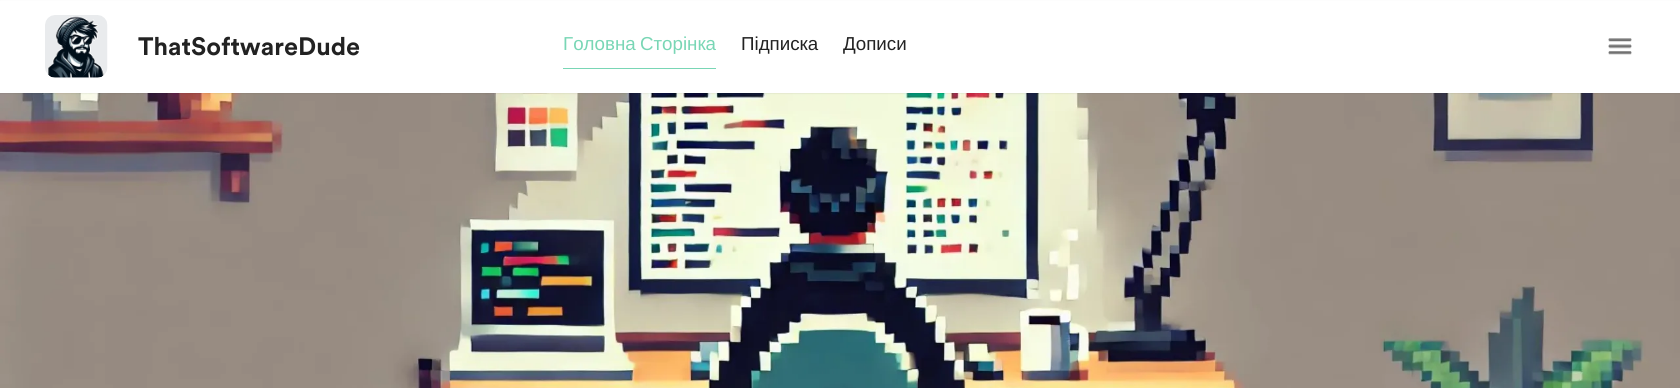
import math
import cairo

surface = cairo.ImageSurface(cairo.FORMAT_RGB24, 1680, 388)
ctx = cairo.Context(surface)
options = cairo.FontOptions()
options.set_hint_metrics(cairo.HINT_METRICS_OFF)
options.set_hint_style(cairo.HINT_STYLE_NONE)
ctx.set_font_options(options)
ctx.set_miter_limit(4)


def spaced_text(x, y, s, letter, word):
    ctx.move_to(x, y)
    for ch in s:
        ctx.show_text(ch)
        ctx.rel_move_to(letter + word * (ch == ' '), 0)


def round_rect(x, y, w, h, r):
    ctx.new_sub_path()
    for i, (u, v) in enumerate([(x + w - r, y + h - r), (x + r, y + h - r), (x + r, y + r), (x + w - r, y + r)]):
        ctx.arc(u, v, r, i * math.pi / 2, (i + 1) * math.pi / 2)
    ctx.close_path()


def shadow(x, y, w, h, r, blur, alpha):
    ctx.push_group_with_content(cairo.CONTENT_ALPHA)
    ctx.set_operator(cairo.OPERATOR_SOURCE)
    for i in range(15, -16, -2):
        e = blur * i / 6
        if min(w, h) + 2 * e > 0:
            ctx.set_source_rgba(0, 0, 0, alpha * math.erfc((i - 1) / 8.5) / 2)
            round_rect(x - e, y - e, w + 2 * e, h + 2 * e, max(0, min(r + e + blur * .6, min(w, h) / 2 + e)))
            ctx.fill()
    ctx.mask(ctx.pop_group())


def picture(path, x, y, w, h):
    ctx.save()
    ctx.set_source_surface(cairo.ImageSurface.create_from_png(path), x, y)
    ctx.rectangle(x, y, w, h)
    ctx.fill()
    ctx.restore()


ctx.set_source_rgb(1, 1, 1)
ctx.paint()
picture("img4.png", 0, 93, 1680, 295)
ctx.set_source_rgb(0, 0, 0)
shadow(0, 1, 1680, 93, 0, 0.5, 0.06)
ctx.set_source_rgb(1, 1, 1)
ctx.rectangle(0, 1, 1680, 92)
ctx.fill()
picture("img1.png", 45, 15, 63, 63)
picture("img2.png", 48, 16, 56, 62)
ctx.save()
ctx.rectangle(138, 29, 222, 35)
ctx.clip()
ctx.select_font_face("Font", cairo.FONT_SLANT_NORMAL, cairo.FONT_WEIGHT_BOLD)
ctx.set_font_size(25)
ctx.set_source_rgb(0.133, 0.133, 0.133)
ctx.move_to(138, 55)
ctx.show_text("ThatSoftwareDude")
ctx.restore()
ctx.select_font_face("Liberation Sans")
ctx.set_font_size(18.75)
ctx.set_source_rgb(0.475, 0.839, 0.71)
spaced_text(563, 50, "Головна Сторінка", 0, -1)
ctx.rectangle(563, 68, 153, 1)
ctx.fill()
ctx.set_source_rgb(0.133, 0.133, 0.133)
ctx.move_to(741, 50)
ctx.show_text("Підписка")
ctx.move_to(843, 50)
ctx.show_text("Дописи")
picture("img3.png", 1608, 38, 24, 17)
surface.write_to_png("page.png")
